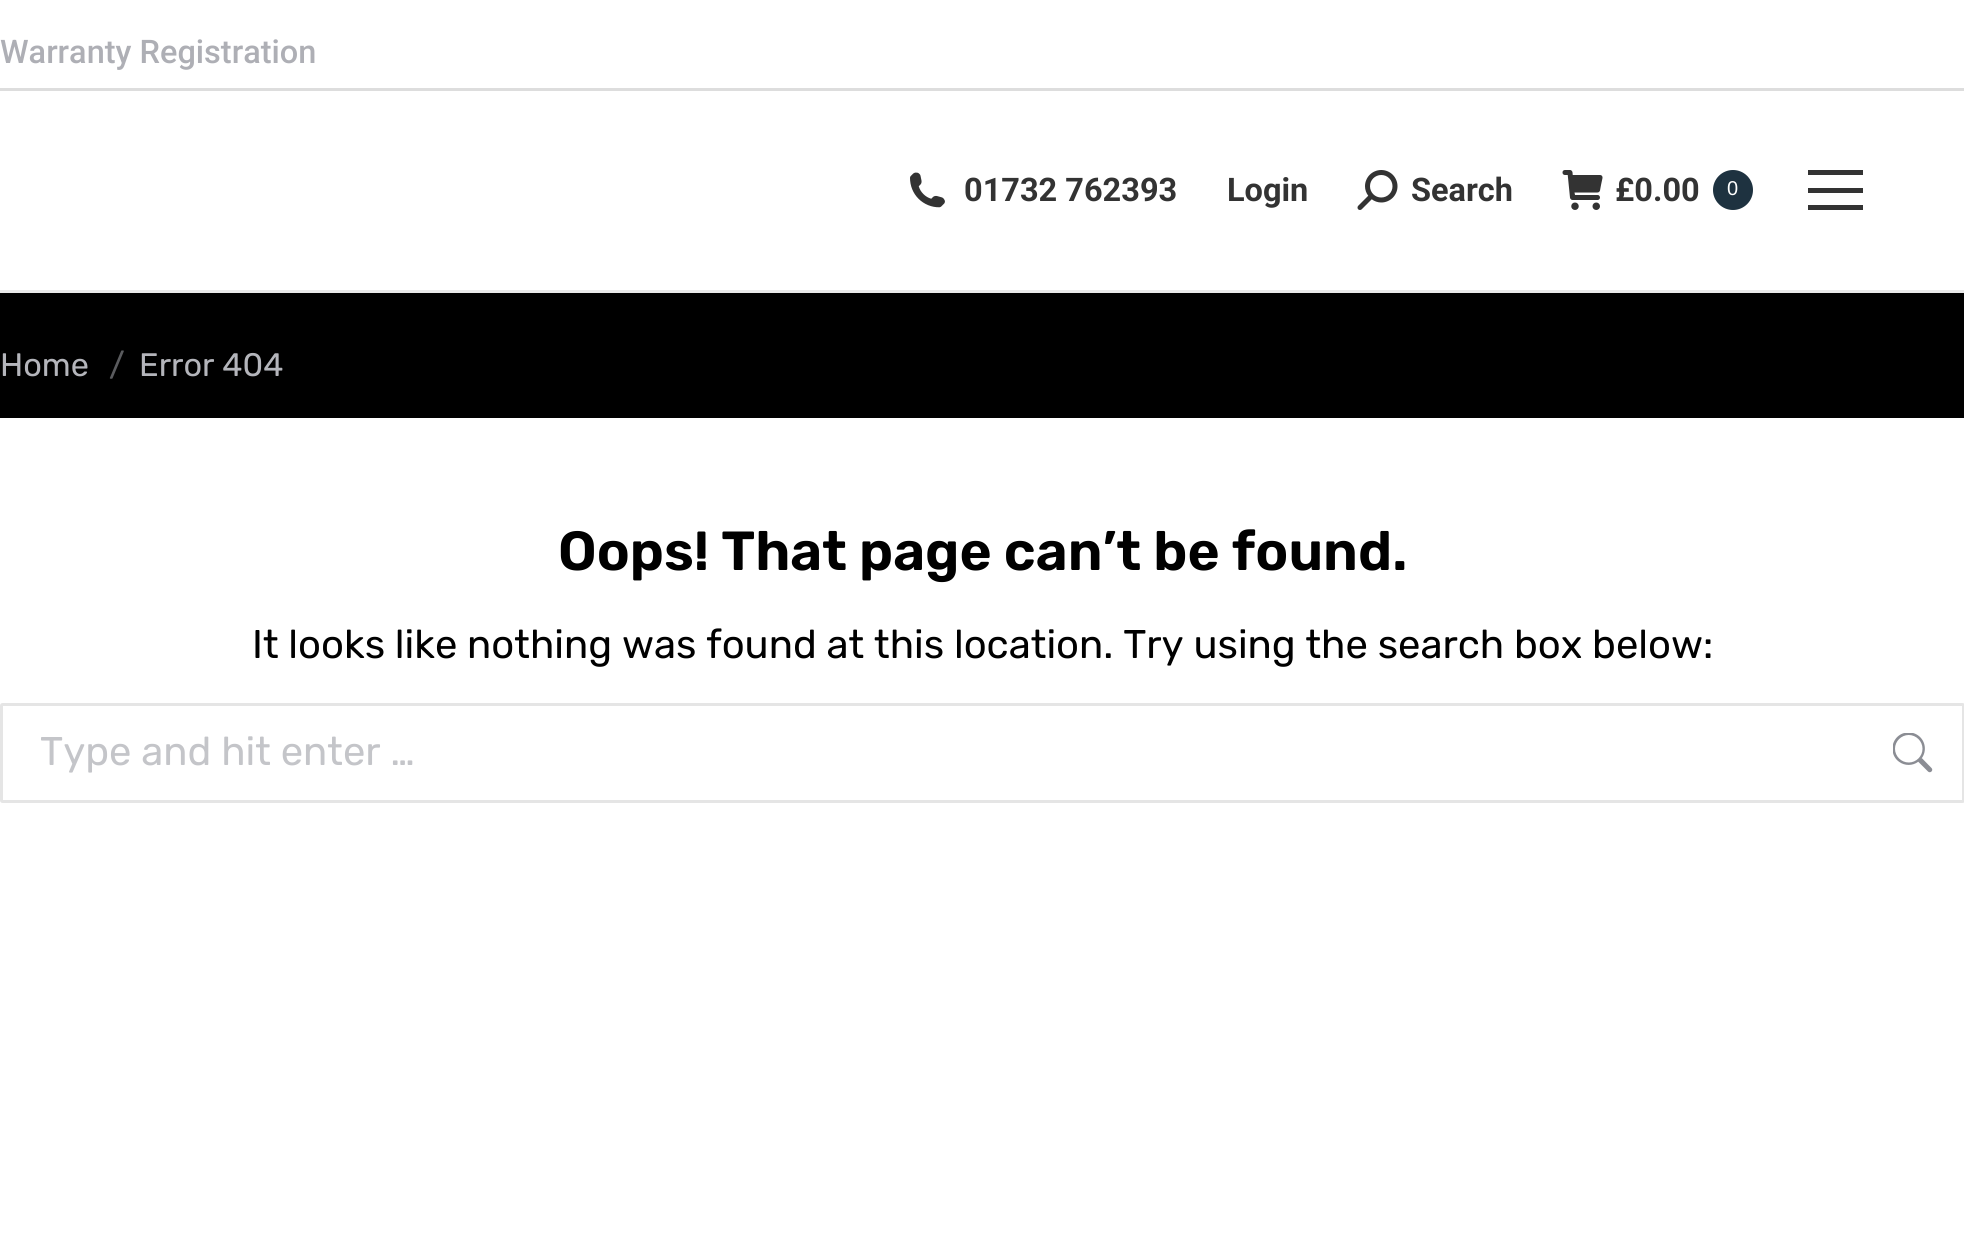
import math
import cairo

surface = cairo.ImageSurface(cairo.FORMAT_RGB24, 1964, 1247)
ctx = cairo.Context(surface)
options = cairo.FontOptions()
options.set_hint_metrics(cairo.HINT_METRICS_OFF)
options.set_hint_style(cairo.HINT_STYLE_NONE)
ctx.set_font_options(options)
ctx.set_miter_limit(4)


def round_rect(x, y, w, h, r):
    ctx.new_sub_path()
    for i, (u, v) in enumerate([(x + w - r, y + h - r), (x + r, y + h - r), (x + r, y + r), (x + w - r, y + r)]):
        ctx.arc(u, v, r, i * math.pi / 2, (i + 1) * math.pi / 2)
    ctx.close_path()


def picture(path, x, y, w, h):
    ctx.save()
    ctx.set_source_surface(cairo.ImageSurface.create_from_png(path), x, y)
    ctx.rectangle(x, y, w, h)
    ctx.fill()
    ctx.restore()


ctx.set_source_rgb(1, 1, 1)
ctx.paint()
ctx.set_source_rgb(0.914, 0.914, 0.914)
ctx.rectangle(0, 290, 1964, 3)
ctx.fill()
ctx.select_font_face("Roboto Medium")
ctx.set_font_size(32.5)
ctx.set_source_rgb(0.682, 0.686, 0.71)
ctx.move_to(0, 63)
ctx.show_text("Warranty Registration")
ctx.set_source_rgb(0.867, 0.867, 0.867)
ctx.rectangle(0, 88, 1964, 3)
ctx.fill()
picture("img1.png", 910, 172, 35, 36)
ctx.select_font_face("Roboto", cairo.FONT_SLANT_NORMAL, cairo.FONT_WEIGHT_BOLD)
ctx.set_source_rgb(0.2, 0.2, 0.2)
ctx.move_to(964, 201)
ctx.show_text("01732 762393")
ctx.move_to(1227, 201)
ctx.show_text("Login")
picture("img2.png", 1357, 170, 41, 40)
ctx.move_to(1411, 201)
ctx.show_text("Search")
picture("img3.png", 1562, 170, 41, 40)
ctx.move_to(1615, 201)
ctx.show_text("£0.00")
ctx.set_source_rgb(0.118, 0.196, 0.251)
ctx.new_path()
ctx.arc(1733, 190, 20, 0, 2 * math.pi)
ctx.fill()
ctx.select_font_face("Liberation Sans")
ctx.set_font_size(20)
ctx.set_source_rgb(1, 1, 1)
ctx.move_to(1727, 195)
ctx.show_text("0")
ctx.set_source_rgb(0.2, 0.2, 0.2)
ctx.rectangle(1808, 170, 55, 5)
ctx.fill()
ctx.rectangle(1808, 188, 55, 5)
ctx.fill()
ctx.rectangle(1808, 205, 55, 5)
ctx.fill()
ctx.set_source_rgb(0, 0, 0)
ctx.rectangle(0, 293, 1964, 125)
ctx.fill()
ctx.select_font_face("Rubik")
ctx.set_font_size(32.5)
ctx.set_source_rgb(0.706, 0.71, 0.733)
ctx.move_to(0, 376)
ctx.show_text("Home")
ctx.set_source_rgb(0.353, 0.357, 0.369)
ctx.move_to(109, 376)
ctx.show_text("/")
ctx.set_source_rgb(0.706, 0.71, 0.733)
ctx.move_to(139, 376)
ctx.show_text("Error 404")
ctx.select_font_face("Rubik SemiBold")
ctx.set_font_size(55)
ctx.set_source_rgb(0, 0, 0)
ctx.move_to(558, 570)
ctx.show_text("Oops! That page can’t be found.")
ctx.select_font_face("Rubik")
ctx.set_font_size(40)
ctx.move_to(252, 658)
ctx.show_text("It looks like nothing was found at this location. Try using the search box below:")
round_rect(1.5, 704.5, 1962, 97, 1)
ctx.set_source_rgb(0.898, 0.898, 0.898)
ctx.set_line_width(3)
ctx.stroke()
ctx.set_source_rgb(0.769, 0.773, 0.788)
ctx.move_to(40, 765)
ctx.show_text("Type and hit enter …")
picture("img4.png", 1893, 733, 40, 40)
surface.write_to_png("page.png")
